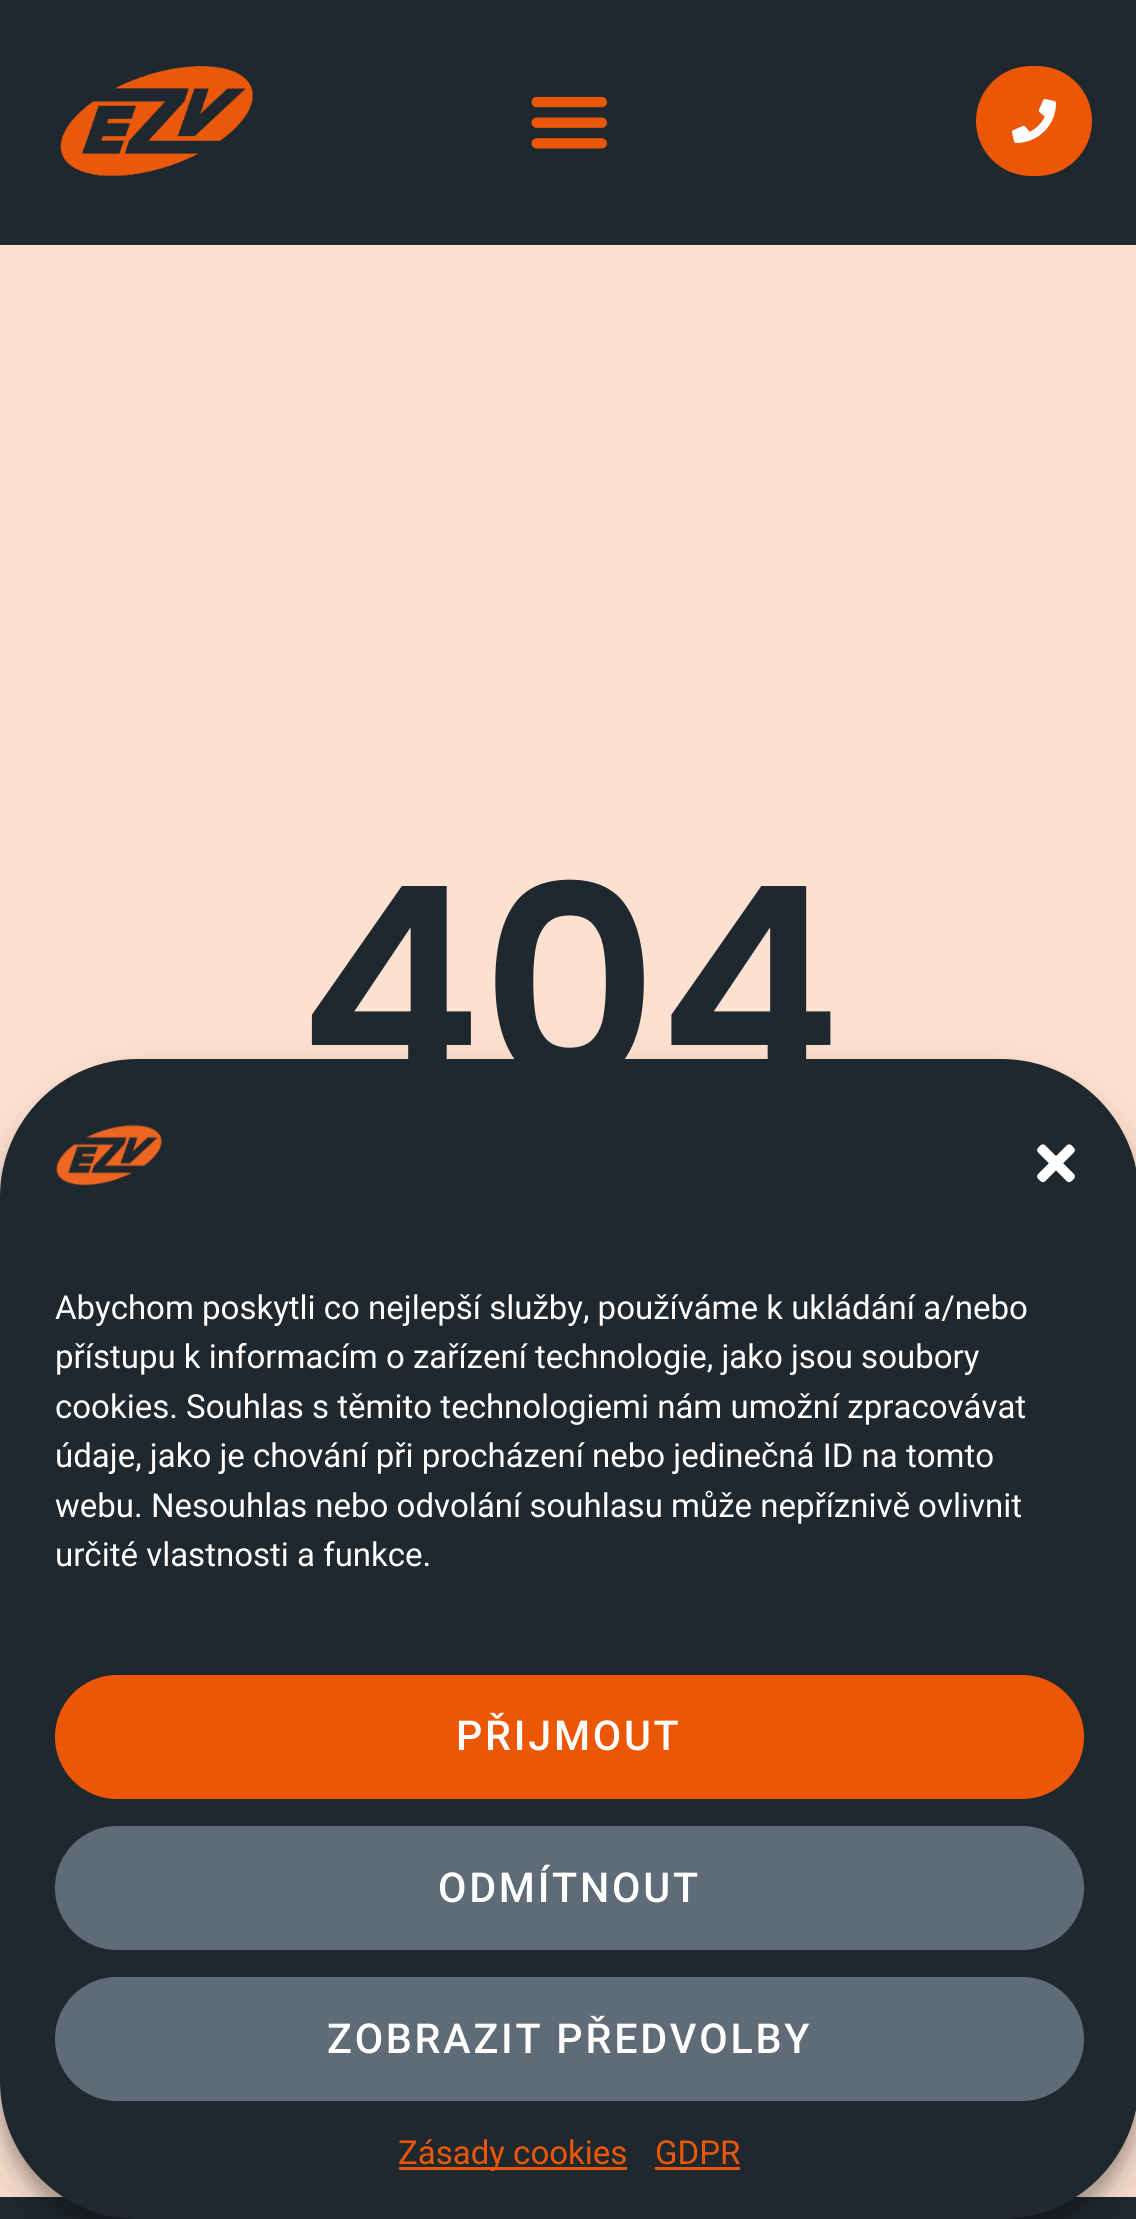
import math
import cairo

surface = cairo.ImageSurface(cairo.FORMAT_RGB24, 1136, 2219)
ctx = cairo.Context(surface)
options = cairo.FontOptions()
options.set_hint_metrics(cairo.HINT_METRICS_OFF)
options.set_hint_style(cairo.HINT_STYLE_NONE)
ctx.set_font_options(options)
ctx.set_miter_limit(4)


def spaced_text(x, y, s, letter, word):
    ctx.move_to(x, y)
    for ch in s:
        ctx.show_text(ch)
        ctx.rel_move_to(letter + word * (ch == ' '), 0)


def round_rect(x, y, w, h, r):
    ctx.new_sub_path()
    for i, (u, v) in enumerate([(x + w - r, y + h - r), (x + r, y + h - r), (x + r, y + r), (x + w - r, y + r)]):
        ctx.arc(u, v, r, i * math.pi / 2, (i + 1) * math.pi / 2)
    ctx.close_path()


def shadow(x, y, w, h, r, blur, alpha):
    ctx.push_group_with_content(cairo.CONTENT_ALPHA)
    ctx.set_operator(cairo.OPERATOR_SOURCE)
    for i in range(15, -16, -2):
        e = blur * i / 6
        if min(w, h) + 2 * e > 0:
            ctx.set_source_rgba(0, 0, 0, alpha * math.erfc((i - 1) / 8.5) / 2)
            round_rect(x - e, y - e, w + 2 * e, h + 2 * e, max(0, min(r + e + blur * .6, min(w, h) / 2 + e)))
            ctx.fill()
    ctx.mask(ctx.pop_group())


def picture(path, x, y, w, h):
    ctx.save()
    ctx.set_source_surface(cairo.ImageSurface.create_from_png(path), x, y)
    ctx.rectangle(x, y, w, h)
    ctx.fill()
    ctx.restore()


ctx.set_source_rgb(0.988, 0.878, 0.816)
ctx.paint()
ctx.set_source_rgb(0.125, 0.157, 0.184)
ctx.rectangle(0, 0, 1136, 245)
ctx.fill()
picture("img1.png", 60, 66, 194, 111)
picture("img2.png", 531, 96, 76, 53)
ctx.set_source_rgb(0.922, 0.341, 0.024)
round_rect(976, 66, 116, 110, 55)
ctx.fill()
picture("img3.png", 1012, 99, 44, 44)
ctx.select_font_face("Poppins SemiBold")
ctx.set_font_size(275)
ctx.set_source_rgb(0.125, 0.157, 0.184)
ctx.move_to(299, 1084)
ctx.show_text("404")
ctx.rectangle(0, 2197, 1136, 22)
ctx.fill()
ctx.set_source_rgb(0, 0, 0)
shadow(0, 1075, 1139, 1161, 138, 8, 0.23)
shadow(0, 1086, 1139, 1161, 138, 27.5, 0.19)
ctx.set_source_rgb(0.122, 0.157, 0.184)
round_rect(0, 1059, 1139, 1160, 138)
ctx.fill()
picture("img4.png", 56, 1124, 106, 62)
picture("img5.png", 1037, 1144, 38, 39)
ctx.select_font_face("Roboto")
ctx.set_font_size(33)
ctx.set_source_rgb(1, 1, 1)
ctx.move_to(55, 1319)
ctx.show_text("Abychom poskytli co nejlepší služby, používáme k ukládání a/nebo")
ctx.move_to(55, 1368)
ctx.show_text("přístupu k informacím o zařízení technologie, jako jsou soubory")
ctx.move_to(55, 1418)
ctx.show_text("cookies. Souhlas s těmito technologiemi nám umožní zpracovávat")
ctx.move_to(55, 1467)
ctx.show_text("údaje, jako je chování při procházení nebo jedinečná ID na tomto")
ctx.move_to(55, 1517)
ctx.show_text("webu. Nesouhlas nebo odvolání souhlasu může nepříznivě ovlivnit")
ctx.move_to(55, 1566)
ctx.show_text("určité vlastnosti a funkce.")
ctx.set_source_rgb(0.925, 0.341, 0.027)
round_rect(56.5, 1676.5, 1026, 121, 60.5)
ctx.fill_preserve()
ctx.set_line_width(3)
ctx.stroke()
ctx.select_font_face("Roboto Medium")
ctx.set_font_size(41.25)
ctx.set_source_rgb(1, 1, 1)
spaced_text(456, 1750, "PŘIJMOUT", 2.75, 0)
ctx.set_source_rgb(0.373, 0.42, 0.467)
round_rect(56.5, 1827.5, 1026, 121, 60.5)
ctx.fill_preserve()
ctx.stroke()
ctx.set_source_rgb(1, 1, 1)
spaced_text(438, 1902, "ODMÍTNOUT", 2.75, 0)
ctx.set_source_rgb(0.373, 0.42, 0.467)
round_rect(56.5, 1978.5, 1026, 121, 60.5)
ctx.fill_preserve()
ctx.stroke()
ctx.set_source_rgb(1, 1, 1)
spaced_text(327, 2053, "ZOBRAZIT PŘEDVOLBY", 2.75, 0)
ctx.set_source_rgb(0.925, 0.341, 0.027)
ctx.rectangle(399, 2167, 228, 3)
ctx.fill()
ctx.select_font_face("Roboto")
ctx.set_font_size(33)
ctx.move_to(398, 2164)
ctx.show_text("Zásady cookies")
ctx.move_to(655, 2164)
ctx.show_text("GDPR")
ctx.rectangle(655, 2167, 85, 3)
ctx.fill()
surface.write_to_png("page.png")
